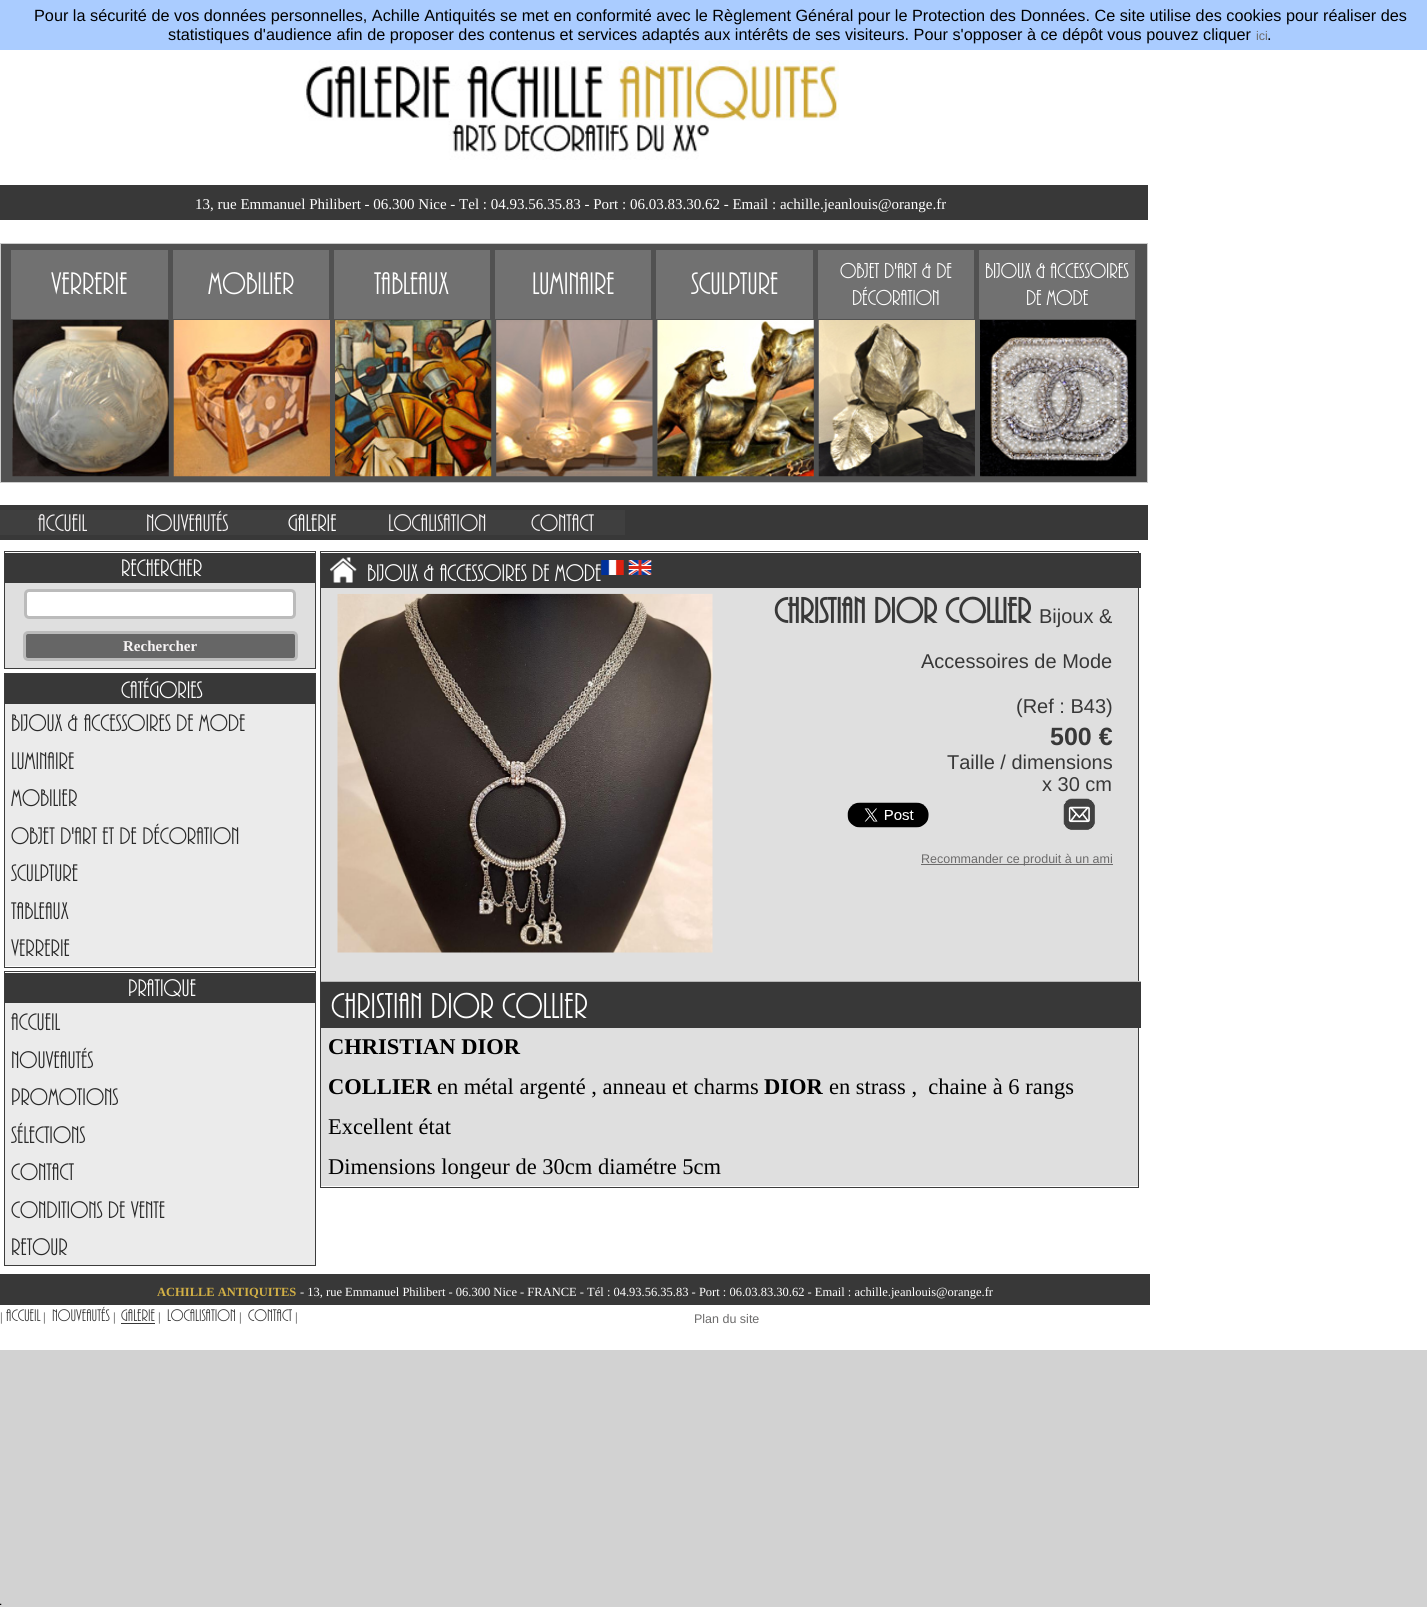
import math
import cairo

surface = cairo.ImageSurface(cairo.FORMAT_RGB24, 1427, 1607)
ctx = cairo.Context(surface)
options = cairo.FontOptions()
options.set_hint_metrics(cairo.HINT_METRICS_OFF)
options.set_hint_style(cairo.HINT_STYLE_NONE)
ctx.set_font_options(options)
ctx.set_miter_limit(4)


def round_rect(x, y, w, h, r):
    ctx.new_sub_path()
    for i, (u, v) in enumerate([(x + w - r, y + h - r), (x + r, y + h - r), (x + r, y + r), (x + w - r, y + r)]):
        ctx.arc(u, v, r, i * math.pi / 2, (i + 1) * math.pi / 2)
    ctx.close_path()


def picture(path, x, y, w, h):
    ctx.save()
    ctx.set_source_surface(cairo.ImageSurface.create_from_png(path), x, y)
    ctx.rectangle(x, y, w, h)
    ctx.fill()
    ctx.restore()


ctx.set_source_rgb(0.824, 0.824, 0.824)
ctx.paint()
ctx.set_source_rgb(0.667, 0.8, 1)
ctx.rectangle(0, 0, 1427, 50)
ctx.fill()
ctx.select_font_face("Liberation Sans")
ctx.set_font_size(16.25)
ctx.set_source_rgb(0, 0, 0)
ctx.move_to(34, 21)
ctx.show_text("Pour la sécurité de vos données personnelles, Achille Antiquités se met en conformité avec le Règlement Général pour le Protection des Données. Ce site utilise des cookies pour réaliser des")
ctx.move_to(168, 40)
ctx.show_text("statistiques d'audience afin de proposer des contenus et services adaptés aux intérêts de ses visiteurs. Pour s'opposer à ce dépôt vous pouvez cliquer")
ctx.set_font_size(12.5)
ctx.set_source_rgb(0.424, 0.42, 0.42)
ctx.move_to(1256, 40)
ctx.show_text("ici")
ctx.set_font_size(16.25)
ctx.set_source_rgb(0, 0, 0)
ctx.move_to(1267, 40)
ctx.show_text(".")
ctx.set_source_rgb(1, 1, 1)
ctx.rectangle(0, 50, 1427, 1300)
ctx.fill()
picture("img1.png", 304, 60, 535, 100)
ctx.set_source_rgb(0.22, 0.22, 0.22)
ctx.rectangle(0, 185, 1148, 35)
ctx.fill()
ctx.select_font_face("Liberation Serif")
ctx.set_font_size(15)
ctx.set_source_rgb(1, 1, 1)
ctx.move_to(195, 209)
ctx.show_text("13, rue Emmanuel Philibert - 06.300 Nice - Tel : 04.93.56.35.83 - Port : 06.03.83.30.62 - Email : achille.jeanlouis@orange.fr")
ctx.set_source_rgb(0.318, 0.318, 0.318)
ctx.rectangle(0.5, 243.5, 1147, 239)
ctx.fill_preserve()
ctx.set_source_rgb(0.8, 0.8, 0.8)
ctx.set_line_width(1)
ctx.stroke()
ctx.set_source_rgb(0.443, 0.443, 0.443)
ctx.rectangle(11, 250, 157, 188)
ctx.fill()
ctx.select_font_face("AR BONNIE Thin")
ctx.set_font_size(32.5)
ctx.set_source_rgb(1, 1, 1)
ctx.move_to(51, 294)
ctx.show_text("Verrerie")
ctx.rectangle(11.5, 319.5, 158, 158)
ctx.set_source_rgb(0.318, 0.318, 0.318)
ctx.stroke()
picture("img2.png", 12, 320, 157, 157)
ctx.set_source_rgb(0.443, 0.443, 0.443)
ctx.rectangle(173, 250, 156, 69)
ctx.fill()
ctx.set_source_rgb(1, 1, 1)
ctx.move_to(208, 294)
ctx.show_text("Mobilier")
picture("img3.png", 173, 320, 157, 157)
ctx.set_source_rgb(0.443, 0.443, 0.443)
ctx.rectangle(334, 250, 156, 69)
ctx.fill()
ctx.set_source_rgb(1, 1, 1)
ctx.move_to(374, 294)
ctx.show_text("Tableaux")
picture("img4.png", 335, 320, 157, 157)
ctx.set_source_rgb(0.443, 0.443, 0.443)
ctx.rectangle(495, 250, 156, 188)
ctx.fill()
ctx.set_source_rgb(1, 1, 1)
ctx.move_to(532, 294)
ctx.show_text("Luminaire")
ctx.rectangle(495.5, 319.5, 158, 158)
ctx.set_source_rgb(0.318, 0.318, 0.318)
ctx.stroke()
picture("img5.png", 496, 320, 157, 157)
ctx.set_source_rgb(0.443, 0.443, 0.443)
ctx.rectangle(656, 250, 157, 188)
ctx.fill()
ctx.set_source_rgb(1, 1, 1)
ctx.move_to(691, 294)
ctx.show_text("Sculpture")
ctx.rectangle(656.5, 319.5, 158, 158)
ctx.set_source_rgb(0.318, 0.318, 0.318)
ctx.stroke()
picture("img6.png", 657, 320, 157, 157)
ctx.set_source_rgb(0.443, 0.443, 0.443)
ctx.rectangle(818, 250, 156, 69)
ctx.fill()
ctx.set_font_size(22.5)
ctx.set_source_rgb(1, 1, 1)
ctx.move_to(840, 278)
ctx.show_text("Objet d'art & de")
ctx.move_to(852, 305)
ctx.show_text("Décoration")
picture("img7.png", 818, 320, 157, 157)
ctx.set_source_rgb(0.443, 0.443, 0.443)
ctx.rectangle(979, 250, 156, 69)
ctx.fill()
ctx.set_source_rgb(1, 1, 1)
ctx.move_to(985, 278)
ctx.show_text("Bijoux & accessoires")
ctx.move_to(1026, 305)
ctx.show_text("de mode")
picture("img8.png", 980, 320, 157, 157)
ctx.set_source_rgb(0.22, 0.22, 0.22)
ctx.rectangle(0, 505, 1148, 35)
ctx.fill()
ctx.set_source_rgb(0.247, 0.247, 0.247)
ctx.rectangle(0, 510, 625, 25)
ctx.fill()
ctx.set_font_size(25)
ctx.set_source_rgb(0.961, 0.953, 0.957)
ctx.move_to(38, 531)
ctx.show_text("Accueil")
ctx.move_to(146, 531)
ctx.show_text("Nouveautés")
ctx.set_source_rgb(1, 1, 1)
ctx.move_to(288, 531)
ctx.show_text("Galerie")
ctx.set_source_rgb(0.961, 0.953, 0.957)
ctx.move_to(388, 531)
ctx.show_text("Localisation")
ctx.move_to(531, 531)
ctx.show_text("Contact")
ctx.rectangle(4.5, 551.5, 311, 117)
ctx.set_source_rgb(0.235, 0.235, 0.235)
ctx.stroke()
ctx.set_source_rgb(0.22, 0.22, 0.22)
ctx.rectangle(5, 553, 310, 30)
ctx.fill()
ctx.set_source_rgb(1, 1, 1)
ctx.move_to(121, 576)
ctx.show_text("Rechercher")
ctx.set_source_rgb(0.875, 0.875, 0.875)
ctx.rectangle(5, 583, 310, 85)
ctx.fill()
ctx.set_source_rgb(1, 1, 1)
round_rect(25.5, 590.5, 269, 27, 3.5)
ctx.fill_preserve()
ctx.set_source_rgb(0.733, 0.733, 0.733)
ctx.set_line_width(3)
ctx.stroke()
ctx.set_source_rgb(0.4, 0.4, 0.4)
round_rect(24.5, 632.5, 272, 27, 3.5)
ctx.fill_preserve()
ctx.set_source_rgb(0.733, 0.733, 0.733)
ctx.stroke()
ctx.select_font_face("Liberation Serif", cairo.FONT_SLANT_NORMAL, cairo.FONT_WEIGHT_BOLD)
ctx.set_font_size(15)
ctx.set_source_rgb(0.961, 0.953, 0.957)
ctx.move_to(123, 651)
ctx.show_text("Rechercher")
ctx.rectangle(4.5, 673.5, 311, 294)
ctx.set_source_rgb(0.235, 0.235, 0.235)
ctx.set_line_width(1)
ctx.stroke()
ctx.set_source_rgb(0.22, 0.22, 0.22)
ctx.rectangle(5, 674, 310, 30)
ctx.fill()
ctx.select_font_face("AR BONNIE Thin")
ctx.set_font_size(25)
ctx.set_source_rgb(1, 1, 1)
ctx.move_to(121, 698)
ctx.show_text("Catégories")
ctx.set_source_rgb(0.918, 0.918, 0.918)
ctx.rectangle(5, 704, 310, 262)
ctx.fill()
ctx.set_source_rgb(0.161, 0.161, 0.161)
ctx.move_to(11, 731)
ctx.show_text("Bijoux & Accessoires de Mode")
ctx.move_to(11, 769)
ctx.show_text("Luminaire")
ctx.move_to(11, 806)
ctx.show_text("Mobilier")
ctx.move_to(11, 844)
ctx.show_text("Objet d'art et de Décoration")
ctx.move_to(11, 881)
ctx.show_text("Sculpture")
ctx.move_to(11, 919)
ctx.show_text("Tableaux")
ctx.move_to(11, 956)
ctx.show_text("Verrerie")
ctx.rectangle(4.5, 971.5, 311, 294)
ctx.set_source_rgb(0.235, 0.235, 0.235)
ctx.stroke()
ctx.set_source_rgb(0.22, 0.22, 0.22)
ctx.rectangle(5, 973, 310, 30)
ctx.fill()
ctx.set_source_rgb(1, 1, 1)
ctx.move_to(128, 996)
ctx.show_text("Pratique")
ctx.set_source_rgb(0.918, 0.918, 0.918)
ctx.rectangle(5, 1003, 310, 262)
ctx.fill()
ctx.set_source_rgb(0.161, 0.161, 0.161)
ctx.move_to(11, 1030)
ctx.show_text("Accueil")
ctx.move_to(11, 1068)
ctx.show_text("Nouveautés")
ctx.move_to(11, 1105)
ctx.show_text("Promotions")
ctx.move_to(11, 1143)
ctx.show_text("Sélections")
ctx.move_to(11, 1180)
ctx.show_text("Contact")
ctx.move_to(11, 1218)
ctx.show_text("Conditions de vente")
ctx.move_to(11, 1255)
ctx.show_text("Retour")
ctx.rectangle(320.5, 551.5, 818, 636)
ctx.set_source_rgb(0.235, 0.235, 0.235)
ctx.stroke()
ctx.set_source_rgb(0.22, 0.22, 0.22)
ctx.rectangle(321, 553, 820, 35)
ctx.fill()
picture("img9.png", 330, 557, 27, 26)
ctx.set_source_rgb(1, 1, 1)
ctx.move_to(367, 581)
ctx.show_text("Bijoux & Accessoires de Mode")
picture("img10.png", 601, 560, 23, 15)
picture("img11.png", 628, 560, 24, 15)
ctx.set_source_rgb(0.875, 0.875, 0.875)
ctx.rectangle(321, 588, 817, 598)
ctx.fill()
picture("img12.png", 337, 593, 376, 360)
ctx.select_font_face("AR BONNIE", cairo.FONT_SLANT_NORMAL, cairo.FONT_WEIGHT_BOLD)
ctx.set_font_size(37.5)
ctx.set_source_rgb(0.22, 0.22, 0.22)
ctx.move_to(774, 623)
ctx.show_text("CHRISTIAN DIOR COLLIER")
ctx.select_font_face("Liberation Sans")
ctx.set_font_size(20)
ctx.move_to(1039, 623)
ctx.show_text("Bijoux &")
ctx.move_to(921, 668)
ctx.show_text("Accessoires de Mode")
ctx.move_to(1016, 713)
ctx.show_text("(Ref : B43)")
ctx.select_font_face("Liberation Sans", cairo.FONT_SLANT_NORMAL, cairo.FONT_WEIGHT_BOLD)
ctx.set_font_size(25)
ctx.move_to(1050, 745)
ctx.show_text("500 €")
ctx.select_font_face("Liberation Sans")
ctx.set_font_size(20)
ctx.move_to(947, 769)
ctx.show_text("Taille / dimensions")
ctx.move_to(1042, 791)
ctx.show_text("x 30 cm")
picture("img13.png", 847, 802, 82, 26)
picture("img14.png", 1063, 798, 32, 32)
ctx.set_source_rgb(0.424, 0.42, 0.42)
ctx.rectangle(921, 864, 192, 1)
ctx.fill()
ctx.set_font_size(12.5)
ctx.move_to(921, 863)
ctx.show_text("Recommander ce produit à un ami")
ctx.set_source_rgb(0.22, 0.22, 0.22)
ctx.rectangle(321, 982, 820, 46)
ctx.fill()
ctx.set_source_rgb(0.718, 0.718, 0.718)
ctx.rectangle(321, 981, 820, 1)
ctx.fill()
ctx.select_font_face("AR BONNIE Thin")
ctx.set_font_size(37.5)
ctx.set_source_rgb(1, 1, 1)
ctx.move_to(331, 1018)
ctx.show_text("CHRISTIAN DIOR COLLIER")
ctx.select_font_face("Liberation Serif", cairo.FONT_SLANT_NORMAL, cairo.FONT_WEIGHT_BOLD)
ctx.set_font_size(22.5)
ctx.set_source_rgb(0, 0, 0)
ctx.move_to(328, 1054)
ctx.show_text("CHRISTIAN DIOR")
ctx.move_to(328, 1094)
ctx.show_text("COLLIER")
ctx.select_font_face("Liberation Serif")
ctx.move_to(437, 1094)
ctx.show_text("en métal argenté , anneau et charms")
ctx.select_font_face("Liberation Serif", cairo.FONT_SLANT_NORMAL, cairo.FONT_WEIGHT_BOLD)
ctx.move_to(764, 1094)
ctx.show_text("DIOR")
ctx.select_font_face("Liberation Serif")
ctx.move_to(829, 1094)
ctx.show_text("en strass ,  chaine à 6 rangs")
ctx.move_to(328, 1134)
ctx.show_text("Excellent état")
ctx.move_to(328, 1174)
ctx.show_text("Dimensions longeur de 30cm diamétre 5cm")
ctx.set_source_rgb(0.22, 0.22, 0.22)
ctx.rectangle(0, 1274, 1150, 31)
ctx.fill()
ctx.select_font_face("Liberation Serif", cairo.FONT_SLANT_NORMAL, cairo.FONT_WEIGHT_BOLD)
ctx.set_font_size(12.5)
ctx.set_source_rgb(0.82, 0.686, 0.271)
ctx.move_to(157, 1296)
ctx.show_text("ACHILLE ANTIQUITES")
ctx.select_font_face("Liberation Serif")
ctx.set_source_rgb(1, 1, 1)
ctx.move_to(300, 1296)
ctx.show_text("- 13, rue Emmanuel Philibert - 06.300 Nice - FRANCE - Tél : 04.93.56.35.83 - Port : 06.03.83.30.62 - Email : achille.jeanlouis@orange.fr")
ctx.set_source_rgb(0.22, 0.22, 0.22)
ctx.move_to(0, 1321)
ctx.show_text("|")
ctx.select_font_face("AR BONNIE Thin")
ctx.set_font_size(17.5)
ctx.move_to(6, 1321)
ctx.show_text("Accueil")
ctx.select_font_face("Liberation Serif")
ctx.set_font_size(12.5)
ctx.move_to(43, 1321)
ctx.show_text("|")
ctx.select_font_face("AR BONNIE Thin")
ctx.set_font_size(17.5)
ctx.move_to(52, 1321)
ctx.show_text("Nouveautés")
ctx.select_font_face("Liberation Serif")
ctx.set_font_size(12.5)
ctx.move_to(113, 1321)
ctx.show_text("|")
ctx.select_font_face("AR BONNIE Thin")
ctx.set_font_size(17.5)
ctx.move_to(121, 1321)
ctx.show_text("Galerie")
ctx.rectangle(121, 1323, 34, 1)
ctx.fill()
ctx.select_font_face("Liberation Serif")
ctx.set_font_size(12.5)
ctx.move_to(158, 1321)
ctx.show_text("|")
ctx.select_font_face("AR BONNIE Thin")
ctx.set_font_size(17.5)
ctx.move_to(167, 1321)
ctx.show_text("Localisation")
ctx.select_font_face("Liberation Serif")
ctx.set_font_size(12.5)
ctx.move_to(239, 1321)
ctx.show_text("|")
ctx.select_font_face("AR BONNIE Thin")
ctx.set_font_size(17.5)
ctx.move_to(248, 1321)
ctx.show_text("Contact")
ctx.select_font_face("Liberation Serif")
ctx.set_font_size(12.5)
ctx.move_to(295, 1321)
ctx.show_text("|")
ctx.select_font_face("Liberation Sans")
ctx.set_source_rgb(0.424, 0.42, 0.42)
ctx.move_to(694, 1323)
ctx.show_text("Plan du site")
picture("img15.png", 0, 1603, 2, 2)
surface.write_to_png("page.png")
